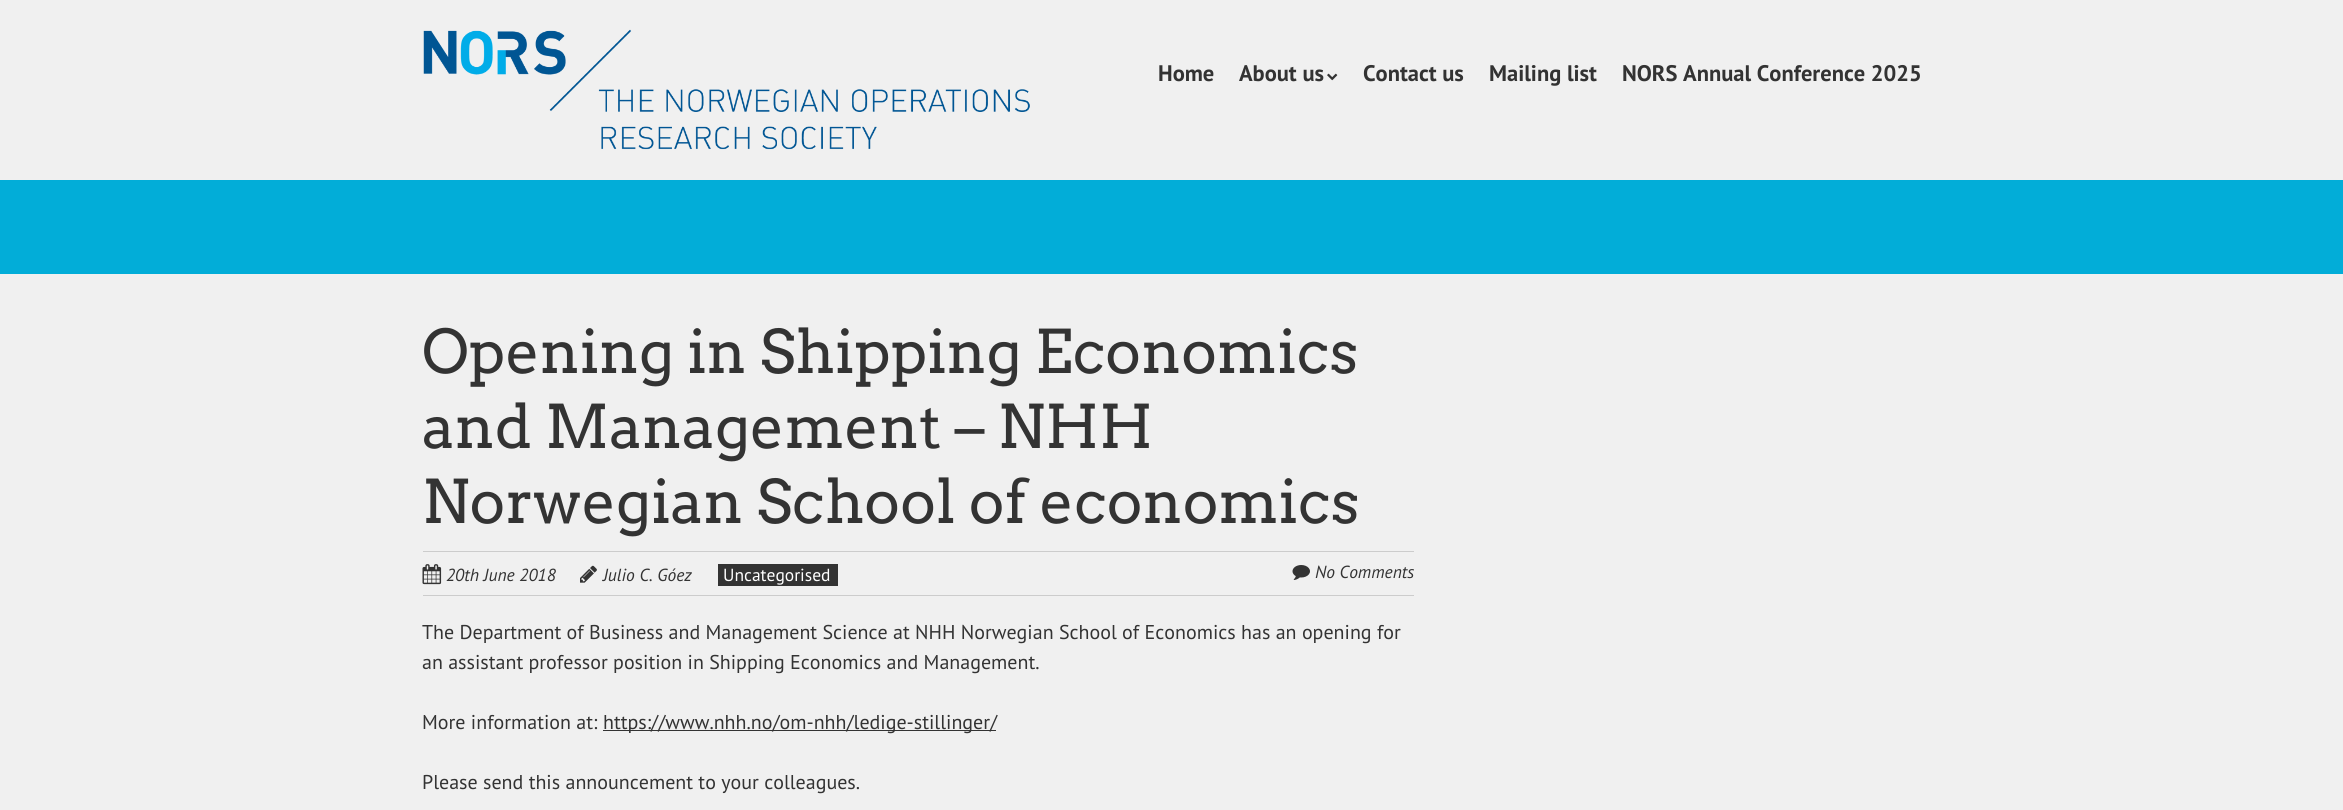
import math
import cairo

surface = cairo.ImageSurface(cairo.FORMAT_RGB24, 2343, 810)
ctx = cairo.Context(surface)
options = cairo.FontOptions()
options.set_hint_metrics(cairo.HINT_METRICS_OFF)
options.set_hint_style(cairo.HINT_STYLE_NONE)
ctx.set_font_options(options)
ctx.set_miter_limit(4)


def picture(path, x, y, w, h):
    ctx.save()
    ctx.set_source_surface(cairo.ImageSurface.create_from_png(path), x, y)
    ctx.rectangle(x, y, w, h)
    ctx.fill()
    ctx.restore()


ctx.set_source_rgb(0.941, 0.941, 0.941)
ctx.paint()
picture("img1.png", 423, 29, 607, 121)
ctx.select_font_face("PT Sans", cairo.FONT_SLANT_NORMAL, cairo.FONT_WEIGHT_BOLD)
ctx.set_font_size(22.5)
ctx.set_source_rgb(0.2, 0.2, 0.2)
ctx.move_to(1158, 81)
ctx.show_text("Home")
ctx.move_to(1239, 81)
ctx.show_text("About us")
picture("img2.png", 1327, 73, 11, 8)
ctx.move_to(1363, 81)
ctx.show_text("Contact us")
ctx.move_to(1489, 81)
ctx.show_text("Mailing list")
ctx.move_to(1622, 81)
ctx.show_text("NORS Annual Conference 2025")
ctx.set_source_rgb(0.008, 0.678, 0.847)
ctx.rectangle(0, 180, 2343, 94)
ctx.fill()
ctx.select_font_face("Arvo")
ctx.set_font_size(60)
ctx.set_source_rgb(0.2, 0.2, 0.2)
ctx.move_to(422, 373)
ctx.show_text("Opening in Shipping Economics")
ctx.move_to(422, 448)
ctx.show_text("and Management – NHH")
ctx.move_to(422, 523)
ctx.show_text("Norwegian School of economics")
ctx.set_source_rgb(0.8, 0.8, 0.8)
ctx.rectangle(423, 551, 991, 1)
ctx.fill()
ctx.rectangle(423, 595, 991, 1)
ctx.fill()
picture("img3.png", 422, 564, 20, 21)
ctx.select_font_face("PT Sans", cairo.FONT_SLANT_ITALIC)
ctx.set_font_size(17.5)
ctx.set_source_rgb(0.2, 0.2, 0.2)
ctx.move_to(446, 581)
ctx.show_text("20th June 2018")
picture("img4.png", 580, 565, 17, 18)
ctx.move_to(603, 581)
ctx.show_text("Julio C. Góez")
ctx.rectangle(718, 564, 120, 22)
ctx.fill()
ctx.select_font_face("PT Sans")
ctx.set_source_rgb(1, 1, 1)
ctx.move_to(723, 581)
ctx.show_text("Uncategorised")
picture("img5.png", 1292, 565, 18, 15)
ctx.select_font_face("PT Sans", cairo.FONT_SLANT_ITALIC)
ctx.set_source_rgb(0.2, 0.2, 0.2)
ctx.move_to(1315, 578)
ctx.show_text("No Comments")
ctx.select_font_face("PT Sans")
ctx.set_font_size(20)
ctx.move_to(422, 639)
ctx.show_text("The Department of Business and Management Science at NHH Norwegian School of Economics has an opening for")
ctx.move_to(422, 669)
ctx.show_text("an assistant professor position in Shipping Economics and Management.")
ctx.move_to(422, 729)
ctx.show_text("More information at:")
ctx.rectangle(603, 730, 393, 1)
ctx.fill()
ctx.move_to(603, 729)
ctx.show_text("https://www.nhh.no/om-nhh/ledige-stillinger/")
ctx.move_to(422, 789)
ctx.show_text("Please send this announcement to your colleagues.")
surface.write_to_png("page.png")
